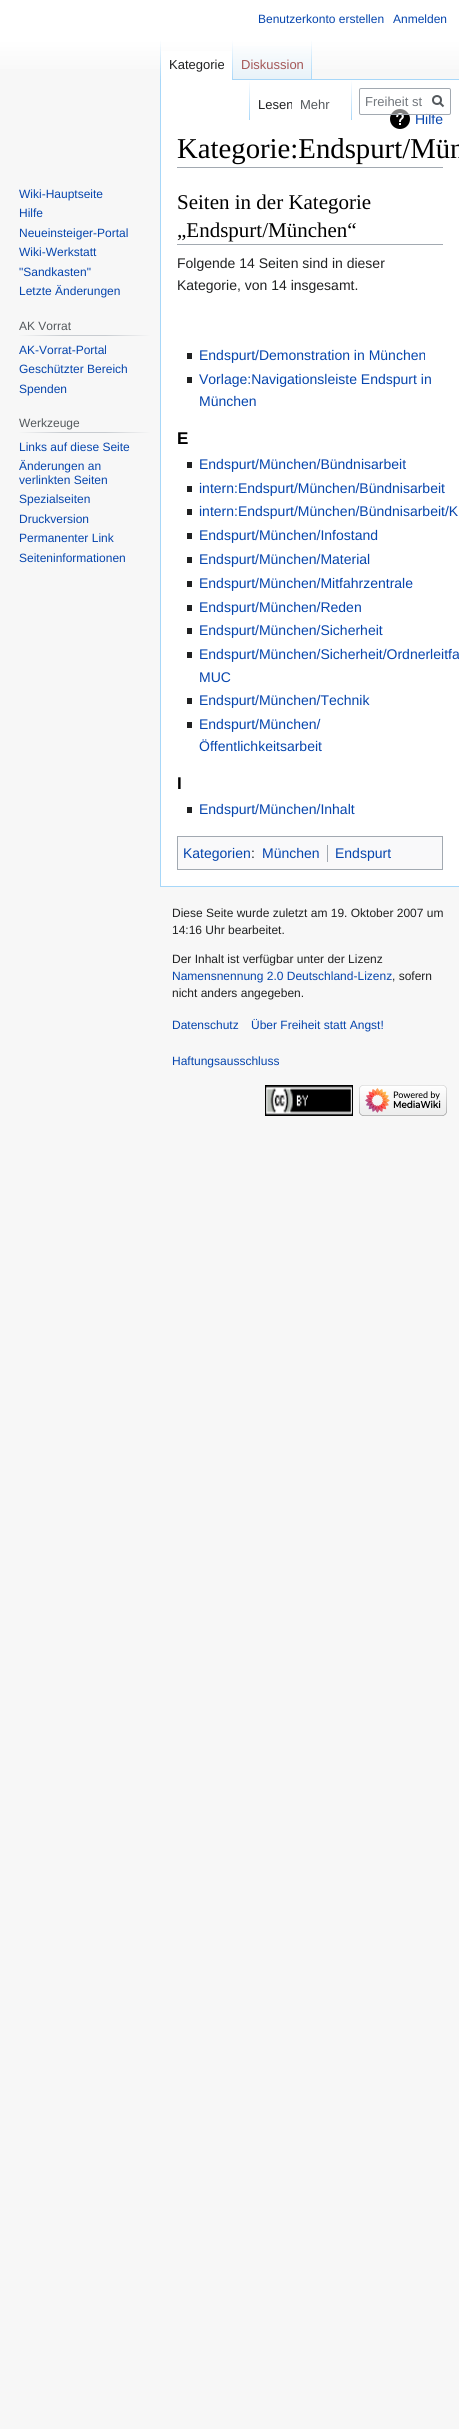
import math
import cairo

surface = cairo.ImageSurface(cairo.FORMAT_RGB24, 459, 2429)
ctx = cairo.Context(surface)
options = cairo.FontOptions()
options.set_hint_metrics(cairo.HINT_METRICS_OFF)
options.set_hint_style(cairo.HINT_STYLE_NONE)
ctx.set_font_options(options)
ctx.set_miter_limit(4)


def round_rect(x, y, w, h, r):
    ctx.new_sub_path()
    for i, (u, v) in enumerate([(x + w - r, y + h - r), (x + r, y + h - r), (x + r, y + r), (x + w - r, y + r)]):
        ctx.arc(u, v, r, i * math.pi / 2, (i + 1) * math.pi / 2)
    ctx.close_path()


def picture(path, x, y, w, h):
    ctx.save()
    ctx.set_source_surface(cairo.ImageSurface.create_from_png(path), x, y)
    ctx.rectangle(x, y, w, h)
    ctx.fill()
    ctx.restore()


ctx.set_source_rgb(0.965, 0.965, 0.965)
ctx.paint()
gradient = cairo.LinearGradient(230, 0, 230, 80)
gradient.add_color_stop_rgba(0.5, 1, 1, 1, 1)
gradient.add_color_stop_rgba(1, 0.965, 0.965, 0.965, 1)
ctx.set_source(gradient)
ctx.rectangle(0, 0, 459, 69)
ctx.fill()
ctx.select_font_face("Liberation Sans")
ctx.set_font_size(12)
ctx.set_source_rgb(0.024, 0.271, 0.678)
ctx.move_to(258, 23)
ctx.show_text("Benutzerkonto erstellen")
ctx.move_to(393, 23)
ctx.show_text("Anmelden")
ctx.set_source_rgb(0.655, 0.843, 0.976)
ctx.rectangle(160, 886, 299, 1)
ctx.fill()
ctx.rectangle(160, 79, 1, 808)
ctx.fill()
gradient = cairo.LinearGradient(161, 40, 161, 80)
gradient.add_color_stop_rgba(0, 0.655, 0.843, 0.976, 0)
gradient.add_color_stop_rgba(1, 0.655, 0.843, 0.976, 1)
ctx.set_source(gradient)
ctx.rectangle(160, 40, 1, 40)
ctx.fill()
ctx.set_source_rgb(1, 1, 1)
ctx.rectangle(161, 51, 71, 29)
ctx.fill()
gradient = cairo.LinearGradient(233, 40, 233, 80)
gradient.add_color_stop_rgba(0, 1, 1, 1, 1)
gradient.add_color_stop_rgba(1, 0.655, 0.843, 0.976, 1)
ctx.set_source(gradient)
ctx.rectangle(232, 40, 1, 40)
ctx.fill()
ctx.set_font_size(13)
ctx.set_source_rgb(0.125, 0.129, 0.133)
ctx.move_to(169, 69)
ctx.show_text("Kategorie")
gradient = cairo.LinearGradient(273, 80, 273, 40)
gradient.add_color_stop_rgba(0, 0.467, 0.757, 0.965, 1)
gradient.add_color_stop_rgba(0.03, 0.91, 0.949, 0.973, 1)
gradient.add_color_stop_rgba(1, 1, 1, 1, 1)
ctx.set_source(gradient)
ctx.rectangle(233, 46, 79, 34)
ctx.fill()
gradient = cairo.LinearGradient(312, 40, 312, 80)
gradient.add_color_stop_rgba(0, 0.655, 0.843, 0.976, 0)
gradient.add_color_stop_rgba(1, 0.655, 0.843, 0.976, 1)
ctx.set_source(gradient)
ctx.rectangle(311, 40, 1, 40)
ctx.fill()
ctx.set_source_rgb(0.647, 0.345, 0.345)
ctx.move_to(241, 69)
ctx.show_text("Diskussion")
ctx.set_source_rgb(1, 1, 1)
ctx.rectangle(161, 80, 298, 806)
ctx.fill()
gradient = cairo.LinearGradient(250, 80, 250, 120)
gradient.add_color_stop_rgba(0, 1, 1, 1, 1)
gradient.add_color_stop_rgba(1, 0.655, 0.843, 0.976, 1)
ctx.set_source(gradient)
ctx.rectangle(249, 80, 1, 40)
ctx.fill()
ctx.save()
ctx.rectangle(250, 80, 42, 40)
ctx.clip()
ctx.set_source_rgb(0.125, 0.129, 0.133)
ctx.move_to(258, 109)
ctx.show_text("Lesen")
ctx.restore()
gradient = cairo.LinearGradient(352, 80, 352, 120)
gradient.add_color_stop_rgba(0, 1, 1, 1, 1)
gradient.add_color_stop_rgba(1, 0.655, 0.843, 0.976, 1)
ctx.set_source(gradient)
ctx.rectangle(351, 80, 1, 40)
ctx.fill()
ctx.set_source_rgb(0.329, 0.349, 0.365)
ctx.move_to(300, 109)
ctx.show_text("Mehr")
picture("img1.png", 390, 109, 20, 20)
ctx.set_font_size(14)
ctx.set_source_rgb(0.024, 0.271, 0.678)
ctx.move_to(415, 124)
ctx.show_text("Hilfe")
ctx.set_source_rgba(1, 1, 1, 0.5)
round_rect(359.5, 88.5, 91, 26, 1.5)
ctx.fill_preserve()
ctx.set_source_rgb(0.635, 0.663, 0.694)
ctx.set_line_width(1)
ctx.stroke()
ctx.set_font_size(13)
ctx.set_source_rgb(0.447, 0.467, 0.49)
ctx.move_to(365, 106)
ctx.show_text("Freiheit st")
ctx.new_path()
ctx.move_to(443.5, 106.5)
ctx.line_to(439.5, 102.5)
ctx.set_source_rgb(0.329, 0.349, 0.365)
ctx.set_line_width(2)
ctx.stroke()
ctx.arc(437, 100, 4, 0, 2 * math.pi)
ctx.stroke()
ctx.set_font_size(12)
ctx.set_source_rgb(0.024, 0.271, 0.678)
ctx.move_to(19, 198)
ctx.show_text("Wiki-Hauptseite")
ctx.move_to(19, 217)
ctx.show_text("Hilfe")
ctx.move_to(19, 237)
ctx.show_text("Neueinsteiger-Portal")
ctx.move_to(19, 256)
ctx.show_text("Wiki-Werkstatt")
ctx.move_to(19, 276)
ctx.show_text("\"Sandkasten\"")
ctx.move_to(19, 295)
ctx.show_text("Letzte Änderungen")
gradient = cairo.LinearGradient(19, 336, 150, 336)
gradient.add_color_stop_rgba(0, 0.965, 0.965, 0.965, 1)
gradient.add_color_stop_rgba(0.33, 0.784, 0.8, 0.82, 1)
gradient.add_color_stop_rgba(0.66, 0.784, 0.8, 0.82, 1)
gradient.add_color_stop_rgba(1, 0.965, 0.965, 0.965, 1)
ctx.set_source(gradient)
ctx.rectangle(19, 335, 131, 1)
ctx.fill()
ctx.set_source_rgb(0.329, 0.349, 0.365)
ctx.move_to(19, 330)
ctx.show_text("AK Vorrat")
ctx.set_source_rgb(0.024, 0.271, 0.678)
ctx.move_to(19, 354)
ctx.show_text("AK-Vorrat-Portal")
ctx.move_to(19, 373)
ctx.show_text("Geschützter Bereich")
ctx.move_to(19, 393)
ctx.show_text("Spenden")
gradient = cairo.LinearGradient(19, 433, 150, 433)
gradient.add_color_stop_rgba(0, 0.965, 0.965, 0.965, 1)
gradient.add_color_stop_rgba(0.33, 0.784, 0.8, 0.82, 1)
gradient.add_color_stop_rgba(0.66, 0.784, 0.8, 0.82, 1)
gradient.add_color_stop_rgba(1, 0.965, 0.965, 0.965, 1)
ctx.set_source(gradient)
ctx.rectangle(19, 432, 131, 1)
ctx.fill()
ctx.set_source_rgb(0.329, 0.349, 0.365)
ctx.move_to(19, 427)
ctx.show_text("Werkzeuge")
ctx.set_source_rgb(0.024, 0.271, 0.678)
ctx.move_to(19, 451)
ctx.show_text("Links auf diese Seite")
ctx.move_to(19, 470)
ctx.show_text("Änderungen an")
ctx.move_to(19, 484)
ctx.show_text("verlinkten Seiten")
ctx.move_to(19, 503)
ctx.show_text("Spezialseiten")
ctx.move_to(19, 523)
ctx.show_text("Druckversion")
ctx.move_to(19, 542)
ctx.show_text("Permanenter Link")
ctx.move_to(19, 562)
ctx.show_text("Seiteninformationen")
ctx.set_source_rgb(0.655, 0.843, 0.976)
ctx.rectangle(312, 79, 147, 1)
ctx.fill()
ctx.set_source_rgb(0.635, 0.663, 0.694)
ctx.rectangle(177, 167, 266, 1)
ctx.fill()
ctx.select_font_face("Liberation Serif")
ctx.set_font_size(28.75)
ctx.set_source_rgb(0, 0, 0)
ctx.move_to(177, 158)
ctx.show_text("Kategorie:Endspurt/Mün")
ctx.set_source_rgb(0.635, 0.663, 0.694)
ctx.rectangle(177, 244, 266, 1)
ctx.fill()
ctx.set_font_size(21)
ctx.set_source_rgb(0, 0, 0)
ctx.move_to(177, 209)
ctx.show_text("Seiten in der Kategorie")
ctx.move_to(177, 237)
ctx.show_text("„Endspurt/München“")
ctx.select_font_face("Liberation Sans")
ctx.set_font_size(14)
ctx.set_source_rgb(0.125, 0.129, 0.133)
ctx.move_to(177, 268)
ctx.show_text("Folgende 14 Seiten sind in dieser")
ctx.move_to(177, 290)
ctx.show_text("Kategorie, von 14 insgesamt.")
ctx.rectangle(187, 353, 5, 6)
ctx.fill()
ctx.set_source_rgb(0.024, 0.271, 0.678)
ctx.move_to(199, 360)
ctx.show_text("Endspurt/Demonstration in München")
ctx.set_source_rgb(0.125, 0.129, 0.133)
ctx.rectangle(187, 377, 5, 6)
ctx.fill()
ctx.set_source_rgb(0.024, 0.271, 0.678)
ctx.move_to(199, 384)
ctx.show_text("Vorlage:Navigationsleiste Endspurt in")
ctx.move_to(199, 406)
ctx.show_text("München")
ctx.select_font_face("Liberation Sans", cairo.FONT_SLANT_NORMAL, cairo.FONT_WEIGHT_BOLD)
ctx.set_font_size(17)
ctx.set_source_rgb(0, 0, 0)
ctx.move_to(177, 444)
ctx.show_text("E")
ctx.set_source_rgb(0.125, 0.129, 0.133)
ctx.rectangle(187, 462, 5, 6)
ctx.fill()
ctx.select_font_face("Liberation Sans")
ctx.set_font_size(14)
ctx.set_source_rgb(0.024, 0.271, 0.678)
ctx.move_to(199, 469)
ctx.show_text("Endspurt/München/Bündnisarbeit")
ctx.set_source_rgb(0.125, 0.129, 0.133)
ctx.rectangle(187, 486, 5, 6)
ctx.fill()
ctx.set_source_rgb(0.024, 0.271, 0.678)
ctx.move_to(199, 493)
ctx.show_text("intern:Endspurt/München/Bündnisarbeit")
ctx.set_source_rgb(0.125, 0.129, 0.133)
ctx.rectangle(187, 509, 5, 6)
ctx.fill()
ctx.set_source_rgb(0.024, 0.271, 0.678)
ctx.move_to(199, 516)
ctx.show_text("intern:Endspurt/München/Bündnisarbeit/K")
ctx.set_source_rgb(0.125, 0.129, 0.133)
ctx.rectangle(187, 533, 5, 6)
ctx.fill()
ctx.set_source_rgb(0.024, 0.271, 0.678)
ctx.move_to(199, 540)
ctx.show_text("Endspurt/München/Infostand")
ctx.set_source_rgb(0.125, 0.129, 0.133)
ctx.rectangle(187, 557, 5, 6)
ctx.fill()
ctx.set_source_rgb(0.024, 0.271, 0.678)
ctx.move_to(199, 564)
ctx.show_text("Endspurt/München/Material")
ctx.set_source_rgb(0.125, 0.129, 0.133)
ctx.rectangle(187, 581, 5, 6)
ctx.fill()
ctx.set_source_rgb(0.024, 0.271, 0.678)
ctx.move_to(199, 588)
ctx.show_text("Endspurt/München/Mitfahrzentrale")
ctx.set_source_rgb(0.125, 0.129, 0.133)
ctx.rectangle(187, 605, 5, 6)
ctx.fill()
ctx.set_source_rgb(0.024, 0.271, 0.678)
ctx.move_to(199, 612)
ctx.show_text("Endspurt/München/Reden")
ctx.set_source_rgb(0.125, 0.129, 0.133)
ctx.rectangle(187, 628, 5, 6)
ctx.fill()
ctx.set_source_rgb(0.024, 0.271, 0.678)
ctx.move_to(199, 635)
ctx.show_text("Endspurt/München/Sicherheit")
ctx.set_source_rgb(0.125, 0.129, 0.133)
ctx.rectangle(187, 652, 5, 6)
ctx.fill()
ctx.set_source_rgb(0.024, 0.271, 0.678)
ctx.move_to(199, 659)
ctx.show_text("Endspurt/München/Sicherheit/Ordnerleitfa")
ctx.move_to(199, 682)
ctx.show_text("MUC")
ctx.set_source_rgb(0.125, 0.129, 0.133)
ctx.rectangle(187, 698, 5, 6)
ctx.fill()
ctx.set_source_rgb(0.024, 0.271, 0.678)
ctx.move_to(199, 705)
ctx.show_text("Endspurt/München/Technik")
ctx.set_source_rgb(0.125, 0.129, 0.133)
ctx.rectangle(187, 722, 5, 6)
ctx.fill()
ctx.set_source_rgb(0.024, 0.271, 0.678)
ctx.move_to(199, 729)
ctx.show_text("Endspurt/München/")
ctx.move_to(199, 751)
ctx.show_text("Öffentlichkeitsarbeit")
ctx.select_font_face("Liberation Sans", cairo.FONT_SLANT_NORMAL, cairo.FONT_WEIGHT_BOLD)
ctx.set_font_size(17)
ctx.set_source_rgb(0, 0, 0)
ctx.move_to(177, 789)
ctx.show_text("I")
ctx.set_source_rgb(0.125, 0.129, 0.133)
ctx.rectangle(187, 807, 5, 6)
ctx.fill()
ctx.select_font_face("Liberation Sans")
ctx.set_font_size(14)
ctx.set_source_rgb(0.024, 0.271, 0.678)
ctx.move_to(199, 814)
ctx.show_text("Endspurt/München/Inhalt")
ctx.set_source_rgb(0.973, 0.976, 0.98)
ctx.rectangle(177.5, 836.5, 265, 33)
ctx.fill_preserve()
ctx.set_source_rgb(0.635, 0.663, 0.694)
ctx.set_line_width(1)
ctx.stroke()
ctx.set_source_rgb(0.024, 0.271, 0.678)
ctx.move_to(183, 858)
ctx.show_text("Kategorien")
ctx.set_source_rgb(0.125, 0.129, 0.133)
ctx.move_to(251, 858)
ctx.show_text(":")
ctx.set_source_rgb(0.024, 0.271, 0.678)
ctx.move_to(262, 858)
ctx.show_text("München")
ctx.set_source_rgb(0.635, 0.663, 0.694)
ctx.rectangle(327, 845, 1, 17)
ctx.fill()
ctx.set_source_rgb(0.024, 0.271, 0.678)
ctx.move_to(335, 858)
ctx.show_text("Endspurt")
ctx.set_font_size(12)
ctx.set_source_rgb(0.125, 0.129, 0.133)
ctx.move_to(172, 917)
ctx.show_text("Diese Seite wurde zuletzt am 19. Oktober 2007 um")
ctx.move_to(172, 934)
ctx.show_text("14:16 Uhr bearbeitet.")
ctx.move_to(172, 963)
ctx.show_text("Der Inhalt ist verfügbar unter der Lizenz")
ctx.set_source_rgb(0.024, 0.271, 0.678)
ctx.move_to(172, 980)
ctx.show_text("Namensnennung 2.0 Deutschland-Lizenz")
ctx.set_source_rgb(0.125, 0.129, 0.133)
ctx.move_to(392, 980)
ctx.show_text(", sofern")
ctx.move_to(172, 997)
ctx.show_text("nicht anders angegeben.")
ctx.set_source_rgb(0.024, 0.271, 0.678)
ctx.move_to(172, 1029)
ctx.show_text("Datenschutz")
ctx.move_to(251, 1029)
ctx.show_text("Über Freiheit statt Angst!")
ctx.move_to(172, 1065)
ctx.show_text("Haftungsausschluss")
picture("img2.png", 265, 1085, 88, 31)
picture("img3.png", 359, 1085, 88, 31)
surface.write_to_png("page.png")
